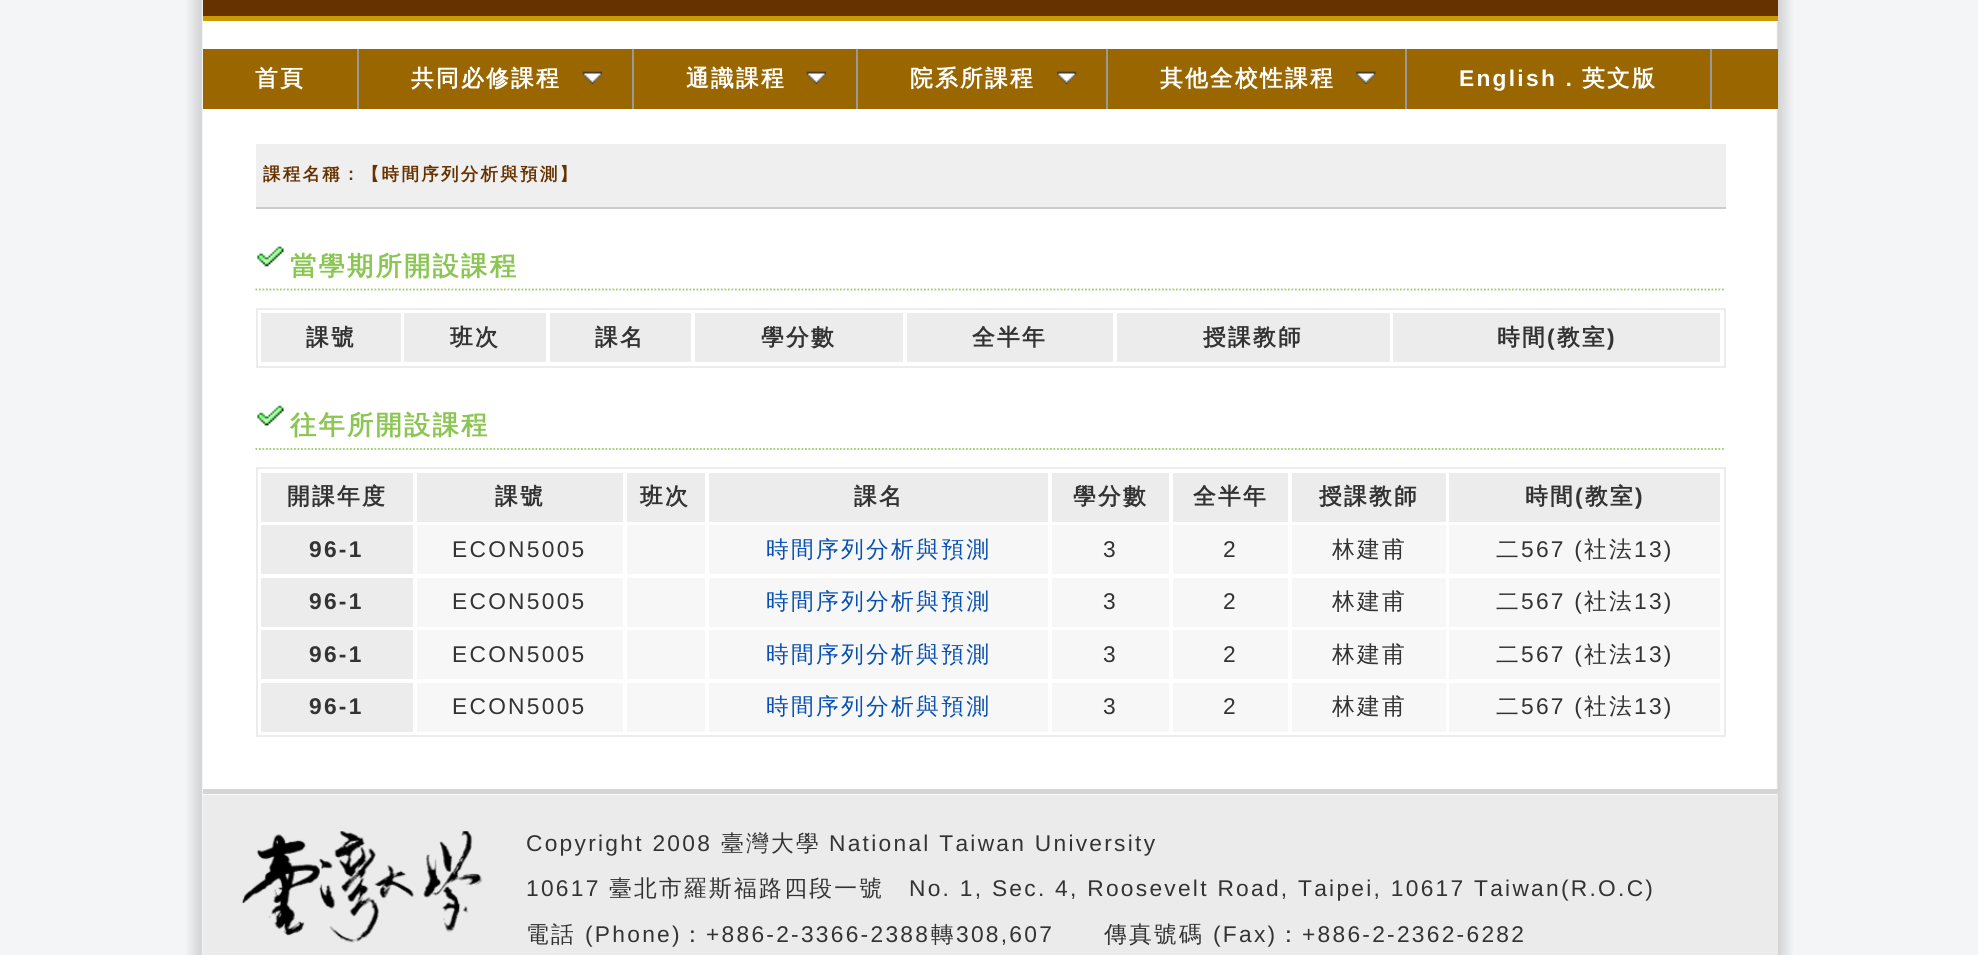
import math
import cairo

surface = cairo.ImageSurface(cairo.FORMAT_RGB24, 1978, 955)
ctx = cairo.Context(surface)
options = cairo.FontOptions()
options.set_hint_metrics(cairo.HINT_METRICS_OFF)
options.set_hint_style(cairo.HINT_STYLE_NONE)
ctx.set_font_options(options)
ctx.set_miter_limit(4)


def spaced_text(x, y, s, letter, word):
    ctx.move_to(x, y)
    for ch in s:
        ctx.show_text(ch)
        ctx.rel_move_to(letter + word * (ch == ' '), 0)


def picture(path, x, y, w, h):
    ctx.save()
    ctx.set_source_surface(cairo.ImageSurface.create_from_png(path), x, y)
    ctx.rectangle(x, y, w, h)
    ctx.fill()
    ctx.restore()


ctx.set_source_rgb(1, 1, 1)
ctx.paint()
picture("img1.png", 0, 0, 1978, 955)
ctx.set_source_rgb(0.4, 0.2, 0)
ctx.rectangle(203, 0, 1575, 16)
ctx.fill()
ctx.set_source_rgb(0.8, 0.6, 0)
ctx.rectangle(203, 16, 1575, 5)
ctx.fill()
ctx.set_source_rgb(0.6, 0.4, 0)
ctx.rectangle(203, 49, 1575, 60)
ctx.fill()
ctx.set_source_rgb(0.6, 0.6, 0.6)
ctx.rectangle(357, 49, 2, 60)
ctx.fill()
ctx.select_font_face("WenQuanYi Zen Hei", cairo.FONT_SLANT_NORMAL, cairo.FONT_WEIGHT_BOLD)
ctx.set_font_size(22.75)
ctx.set_source_rgb(1, 1, 1)
spaced_text(255, 86, "首頁", 2.27, 0)
ctx.set_source_rgb(0.6, 0.6, 0.6)
ctx.rectangle(632, 49, 2, 60)
ctx.fill()
ctx.set_source_rgb(1, 1, 1)
spaced_text(411, 86, "共同必修課程", 2.27, 0)
picture("img2.png", 582, 71, 20, 13)
ctx.set_source_rgb(0.6, 0.6, 0.6)
ctx.rectangle(856, 49, 2, 60)
ctx.fill()
ctx.set_source_rgb(1, 1, 1)
spaced_text(686, 86, "通識課程", 2.27, 0)
picture("img2.png", 806, 71, 20, 13)
ctx.set_source_rgb(0.6, 0.6, 0.6)
ctx.rectangle(1106, 49, 2, 60)
ctx.fill()
ctx.set_source_rgb(1, 1, 1)
spaced_text(910, 86, "院系所課程", 2.27, 0)
picture("img3.png", 1057, 71, 20, 13)
ctx.set_source_rgb(0.6, 0.6, 0.6)
ctx.rectangle(1405, 49, 2, 60)
ctx.fill()
ctx.set_source_rgb(1, 1, 1)
spaced_text(1160, 86, "其他全校性課程", 2.27, 0)
picture("img4.png", 1356, 71, 20, 13)
ctx.set_source_rgb(0.6, 0.6, 0.6)
ctx.rectangle(1710, 49, 2, 60)
ctx.fill()
ctx.select_font_face("Liberation Sans", cairo.FONT_SLANT_NORMAL, cairo.FONT_WEIGHT_BOLD)
ctx.set_source_rgb(1, 1, 1)
spaced_text(1459, 86, "English", 2.27, 0)
ctx.select_font_face("WenQuanYi Zen Hei", cairo.FONT_SLANT_NORMAL, cairo.FONT_WEIGHT_BOLD)
spaced_text(1557, 86, "．英文版", 2.27, 0)
ctx.set_source_rgb(0.937, 0.937, 0.937)
ctx.rectangle(256, 144, 1470, 63)
ctx.fill()
ctx.set_source_rgb(0.8, 0.8, 0.8)
ctx.rectangle(256, 207, 1470, 2)
ctx.fill()
ctx.set_font_size(17.5)
ctx.set_source_rgb(0.4, 0.2, 0)
spaced_text(263, 180, "課程名稱：【時間序列分析與預測】", 2.27, 0)
picture("img5.png", 257, 246, 27, 21)
ctx.new_path()
ctx.move_to(255.5, 289.5)
ctx.line_to(1725.5, 289.5)
ctx.set_source_rgb(0.6, 0.8, 0.4)
ctx.set_line_width(1.8)
ctx.set_dash([1.75, 1.75])
ctx.stroke()
ctx.set_font_size(26.25)
ctx.set_source_rgb(0.545, 0.773, 0.322)
spaced_text(290, 275, "當學期所開設課程", 2.27, 0)
ctx.rectangle(257, 309, 1468, 58)
ctx.set_source_rgb(0.922, 0.922, 0.922)
ctx.set_line_width(2)
ctx.set_dash([])
ctx.stroke()
ctx.rectangle(261, 313, 140, 49)
ctx.fill()
ctx.set_font_size(22.75)
ctx.set_source_rgb(0.2, 0.2, 0.2)
spaced_text(306, 345, "課號", 2.27, 0)
ctx.set_source_rgb(0.922, 0.922, 0.922)
ctx.rectangle(404, 313, 142, 49)
ctx.fill()
ctx.set_source_rgb(0.2, 0.2, 0.2)
spaced_text(450, 345, "班次", 2.27, 0)
ctx.set_source_rgb(0.922, 0.922, 0.922)
ctx.rectangle(550, 313, 141, 49)
ctx.fill()
ctx.set_source_rgb(0.2, 0.2, 0.2)
spaced_text(595, 345, "課名", 2.27, 0)
ctx.set_source_rgb(0.922, 0.922, 0.922)
ctx.rectangle(695, 313, 208, 49)
ctx.fill()
ctx.set_source_rgb(0.2, 0.2, 0.2)
spaced_text(761, 345, "學分數", 2.27, 0)
ctx.set_source_rgb(0.922, 0.922, 0.922)
ctx.rectangle(907, 313, 206, 49)
ctx.fill()
ctx.set_source_rgb(0.2, 0.2, 0.2)
spaced_text(972, 345, "全半年", 2.27, 0)
ctx.set_source_rgb(0.922, 0.922, 0.922)
ctx.rectangle(1117, 313, 273, 49)
ctx.fill()
ctx.set_source_rgb(0.2, 0.2, 0.2)
spaced_text(1203, 345, "授課教師", 2.27, 0)
ctx.set_source_rgb(0.922, 0.922, 0.922)
ctx.rectangle(1393, 313, 327, 49)
ctx.fill()
ctx.set_source_rgb(0.2, 0.2, 0.2)
spaced_text(1497, 345, "時間", 2.27, 0)
ctx.select_font_face("Liberation Sans", cairo.FONT_SLANT_NORMAL, cairo.FONT_WEIGHT_BOLD)
spaced_text(1547, 345, "(", 2.27, 0)
ctx.select_font_face("WenQuanYi Zen Hei", cairo.FONT_SLANT_NORMAL, cairo.FONT_WEIGHT_BOLD)
spaced_text(1557, 345, "教室", 2.27, 0)
ctx.select_font_face("Liberation Sans", cairo.FONT_SLANT_NORMAL, cairo.FONT_WEIGHT_BOLD)
spaced_text(1607, 345, ")", 2.27, 0)
picture("img6.png", 257, 405, 27, 21)
ctx.new_path()
ctx.move_to(255.5, 449)
ctx.line_to(1725.5, 449)
ctx.set_source_rgb(0.6, 0.8, 0.4)
ctx.set_line_width(1.8)
ctx.set_dash([1.75, 1.75])
ctx.stroke()
ctx.select_font_face("WenQuanYi Zen Hei", cairo.FONT_SLANT_NORMAL, cairo.FONT_WEIGHT_BOLD)
ctx.set_font_size(26.25)
ctx.set_source_rgb(0.545, 0.773, 0.322)
spaced_text(290, 434, "往年所開設課程", 2.27, 0)
ctx.rectangle(257, 468, 1468, 268)
ctx.set_source_rgb(0.922, 0.922, 0.922)
ctx.set_line_width(2)
ctx.set_dash([])
ctx.stroke()
ctx.rectangle(261, 473, 152, 49)
ctx.fill()
ctx.set_font_size(22.75)
ctx.set_source_rgb(0.2, 0.2, 0.2)
spaced_text(287, 504, "開課年度", 2.27, 0)
ctx.set_source_rgb(0.922, 0.922, 0.922)
ctx.rectangle(417, 473, 206, 49)
ctx.fill()
ctx.set_source_rgb(0.2, 0.2, 0.2)
spaced_text(495, 504, "課號", 2.27, 0)
ctx.set_source_rgb(0.922, 0.922, 0.922)
ctx.rectangle(627, 473, 78, 49)
ctx.fill()
ctx.set_source_rgb(0.2, 0.2, 0.2)
spaced_text(640, 504, "班次", 2.27, 0)
ctx.set_source_rgb(0.922, 0.922, 0.922)
ctx.rectangle(709, 473, 339, 49)
ctx.fill()
ctx.set_source_rgb(0.2, 0.2, 0.2)
spaced_text(854, 504, "課名", 2.27, 0)
ctx.set_source_rgb(0.922, 0.922, 0.922)
ctx.rectangle(1052, 473, 117, 49)
ctx.fill()
ctx.set_source_rgb(0.2, 0.2, 0.2)
spaced_text(1073, 504, "學分數", 2.27, 0)
ctx.set_source_rgb(0.922, 0.922, 0.922)
ctx.rectangle(1173, 473, 115, 49)
ctx.fill()
ctx.set_source_rgb(0.2, 0.2, 0.2)
spaced_text(1193, 504, "全半年", 2.27, 0)
ctx.set_source_rgb(0.922, 0.922, 0.922)
ctx.rectangle(1292, 473, 154, 49)
ctx.fill()
ctx.set_source_rgb(0.2, 0.2, 0.2)
spaced_text(1319, 504, "授課教師", 2.27, 0)
ctx.set_source_rgb(0.922, 0.922, 0.922)
ctx.rectangle(1449, 473, 271, 49)
ctx.fill()
ctx.set_source_rgb(0.2, 0.2, 0.2)
spaced_text(1525, 504, "時間", 2.27, 0)
ctx.select_font_face("Liberation Sans", cairo.FONT_SLANT_NORMAL, cairo.FONT_WEIGHT_BOLD)
spaced_text(1575, 504, "(", 2.27, 0)
ctx.select_font_face("WenQuanYi Zen Hei", cairo.FONT_SLANT_NORMAL, cairo.FONT_WEIGHT_BOLD)
spaced_text(1585, 504, "教室", 2.27, 0)
ctx.select_font_face("Liberation Sans", cairo.FONT_SLANT_NORMAL, cairo.FONT_WEIGHT_BOLD)
spaced_text(1635, 504, ")", 2.27, 0)
ctx.set_source_rgb(0.922, 0.922, 0.922)
ctx.rectangle(261, 525, 152, 49)
ctx.fill()
ctx.set_source_rgb(0.2, 0.2, 0.2)
spaced_text(309, 557, "96-1", 2.27, 0)
ctx.set_source_rgb(0.965, 0.965, 0.965)
ctx.rectangle(417, 525, 206, 49)
ctx.fill()
ctx.select_font_face("Liberation Sans")
ctx.set_source_rgb(0.2, 0.2, 0.2)
spaced_text(452, 557, "ECON5005", 2.27, 0)
ctx.set_source_rgb(0.965, 0.965, 0.965)
ctx.rectangle(627, 525, 78, 49)
ctx.fill()
ctx.rectangle(709, 525, 339, 49)
ctx.fill()
ctx.select_font_face("WenQuanYi Zen Hei Medium")
ctx.set_source_rgb(0.031, 0.314, 0.698)
spaced_text(766, 557, "時間序列分析與預測", 2.27, 0)
ctx.set_source_rgb(0.965, 0.965, 0.965)
ctx.rectangle(1052, 525, 117, 49)
ctx.fill()
ctx.select_font_face("Liberation Sans")
ctx.set_source_rgb(0.2, 0.2, 0.2)
spaced_text(1103, 557, "3", 2.27, 0)
ctx.set_source_rgb(0.965, 0.965, 0.965)
ctx.rectangle(1173, 525, 115, 49)
ctx.fill()
ctx.set_source_rgb(0.2, 0.2, 0.2)
spaced_text(1223, 557, "2", 2.27, 0)
ctx.set_source_rgb(0.965, 0.965, 0.965)
ctx.rectangle(1292, 525, 154, 49)
ctx.fill()
ctx.select_font_face("WenQuanYi Zen Hei Medium")
ctx.set_source_rgb(0.2, 0.2, 0.2)
spaced_text(1332, 557, "林建甫", 2.27, 0)
ctx.set_source_rgb(0.965, 0.965, 0.965)
ctx.rectangle(1449, 525, 271, 49)
ctx.fill()
ctx.set_source_rgb(0.2, 0.2, 0.2)
spaced_text(1496, 557, "二", 2.27, 0)
ctx.select_font_face("Liberation Sans")
spaced_text(1521, 557, "567 (", 2.27, 0)
ctx.select_font_face("WenQuanYi Zen Hei Medium")
spaced_text(1584, 557, "社法", 2.27, 0)
ctx.select_font_face("Liberation Sans")
spaced_text(1634, 557, "13)", 2.27, 0)
ctx.set_source_rgb(0.922, 0.922, 0.922)
ctx.rectangle(261, 578, 152, 49)
ctx.fill()
ctx.select_font_face("Liberation Sans", cairo.FONT_SLANT_NORMAL, cairo.FONT_WEIGHT_BOLD)
ctx.set_source_rgb(0.2, 0.2, 0.2)
spaced_text(309, 609, "96-1", 2.27, 0)
ctx.set_source_rgb(0.965, 0.965, 0.965)
ctx.rectangle(417, 578, 206, 49)
ctx.fill()
ctx.select_font_face("Liberation Sans")
ctx.set_source_rgb(0.2, 0.2, 0.2)
spaced_text(452, 609, "ECON5005", 2.27, 0)
ctx.set_source_rgb(0.965, 0.965, 0.965)
ctx.rectangle(627, 578, 78, 49)
ctx.fill()
ctx.rectangle(709, 578, 339, 49)
ctx.fill()
ctx.select_font_face("WenQuanYi Zen Hei Medium")
ctx.set_source_rgb(0.031, 0.314, 0.698)
spaced_text(766, 609, "時間序列分析與預測", 2.27, 0)
ctx.set_source_rgb(0.965, 0.965, 0.965)
ctx.rectangle(1052, 578, 117, 49)
ctx.fill()
ctx.select_font_face("Liberation Sans")
ctx.set_source_rgb(0.2, 0.2, 0.2)
spaced_text(1103, 609, "3", 2.27, 0)
ctx.set_source_rgb(0.965, 0.965, 0.965)
ctx.rectangle(1173, 578, 115, 49)
ctx.fill()
ctx.set_source_rgb(0.2, 0.2, 0.2)
spaced_text(1223, 609, "2", 2.27, 0)
ctx.set_source_rgb(0.965, 0.965, 0.965)
ctx.rectangle(1292, 578, 154, 49)
ctx.fill()
ctx.select_font_face("WenQuanYi Zen Hei Medium")
ctx.set_source_rgb(0.2, 0.2, 0.2)
spaced_text(1332, 609, "林建甫", 2.27, 0)
ctx.set_source_rgb(0.965, 0.965, 0.965)
ctx.rectangle(1449, 578, 271, 49)
ctx.fill()
ctx.set_source_rgb(0.2, 0.2, 0.2)
spaced_text(1496, 609, "二", 2.27, 0)
ctx.select_font_face("Liberation Sans")
spaced_text(1521, 609, "567 (", 2.27, 0)
ctx.select_font_face("WenQuanYi Zen Hei Medium")
spaced_text(1584, 609, "社法", 2.27, 0)
ctx.select_font_face("Liberation Sans")
spaced_text(1634, 609, "13)", 2.27, 0)
ctx.set_source_rgb(0.922, 0.922, 0.922)
ctx.rectangle(261, 630, 152, 49)
ctx.fill()
ctx.select_font_face("Liberation Sans", cairo.FONT_SLANT_NORMAL, cairo.FONT_WEIGHT_BOLD)
ctx.set_source_rgb(0.2, 0.2, 0.2)
spaced_text(309, 662, "96-1", 2.27, 0)
ctx.set_source_rgb(0.965, 0.965, 0.965)
ctx.rectangle(417, 630, 206, 49)
ctx.fill()
ctx.select_font_face("Liberation Sans")
ctx.set_source_rgb(0.2, 0.2, 0.2)
spaced_text(452, 662, "ECON5005", 2.27, 0)
ctx.set_source_rgb(0.965, 0.965, 0.965)
ctx.rectangle(627, 630, 78, 49)
ctx.fill()
ctx.rectangle(709, 630, 339, 49)
ctx.fill()
ctx.select_font_face("WenQuanYi Zen Hei Medium")
ctx.set_source_rgb(0.031, 0.314, 0.698)
spaced_text(766, 662, "時間序列分析與預測", 2.27, 0)
ctx.set_source_rgb(0.965, 0.965, 0.965)
ctx.rectangle(1052, 630, 117, 49)
ctx.fill()
ctx.select_font_face("Liberation Sans")
ctx.set_source_rgb(0.2, 0.2, 0.2)
spaced_text(1103, 662, "3", 2.27, 0)
ctx.set_source_rgb(0.965, 0.965, 0.965)
ctx.rectangle(1173, 630, 115, 49)
ctx.fill()
ctx.set_source_rgb(0.2, 0.2, 0.2)
spaced_text(1223, 662, "2", 2.27, 0)
ctx.set_source_rgb(0.965, 0.965, 0.965)
ctx.rectangle(1292, 630, 154, 49)
ctx.fill()
ctx.select_font_face("WenQuanYi Zen Hei Medium")
ctx.set_source_rgb(0.2, 0.2, 0.2)
spaced_text(1332, 662, "林建甫", 2.27, 0)
ctx.set_source_rgb(0.965, 0.965, 0.965)
ctx.rectangle(1449, 630, 271, 49)
ctx.fill()
ctx.set_source_rgb(0.2, 0.2, 0.2)
spaced_text(1496, 662, "二", 2.27, 0)
ctx.select_font_face("Liberation Sans")
spaced_text(1521, 662, "567 (", 2.27, 0)
ctx.select_font_face("WenQuanYi Zen Hei Medium")
spaced_text(1584, 662, "社法", 2.27, 0)
ctx.select_font_face("Liberation Sans")
spaced_text(1634, 662, "13)", 2.27, 0)
ctx.set_source_rgb(0.922, 0.922, 0.922)
ctx.rectangle(261, 683, 152, 49)
ctx.fill()
ctx.select_font_face("Liberation Sans", cairo.FONT_SLANT_NORMAL, cairo.FONT_WEIGHT_BOLD)
ctx.set_source_rgb(0.2, 0.2, 0.2)
spaced_text(309, 714, "96-1", 2.27, 0)
ctx.set_source_rgb(0.965, 0.965, 0.965)
ctx.rectangle(417, 683, 206, 49)
ctx.fill()
ctx.select_font_face("Liberation Sans")
ctx.set_source_rgb(0.2, 0.2, 0.2)
spaced_text(452, 714, "ECON5005", 2.27, 0)
ctx.set_source_rgb(0.965, 0.965, 0.965)
ctx.rectangle(627, 683, 78, 49)
ctx.fill()
ctx.rectangle(709, 683, 339, 49)
ctx.fill()
ctx.select_font_face("WenQuanYi Zen Hei Medium")
ctx.set_source_rgb(0.031, 0.314, 0.698)
spaced_text(766, 714, "時間序列分析與預測", 2.27, 0)
ctx.set_source_rgb(0.965, 0.965, 0.965)
ctx.rectangle(1052, 683, 117, 49)
ctx.fill()
ctx.select_font_face("Liberation Sans")
ctx.set_source_rgb(0.2, 0.2, 0.2)
spaced_text(1103, 714, "3", 2.27, 0)
ctx.set_source_rgb(0.965, 0.965, 0.965)
ctx.rectangle(1173, 683, 115, 49)
ctx.fill()
ctx.set_source_rgb(0.2, 0.2, 0.2)
spaced_text(1223, 714, "2", 2.27, 0)
ctx.set_source_rgb(0.965, 0.965, 0.965)
ctx.rectangle(1292, 683, 154, 49)
ctx.fill()
ctx.select_font_face("WenQuanYi Zen Hei Medium")
ctx.set_source_rgb(0.2, 0.2, 0.2)
spaced_text(1332, 714, "林建甫", 2.27, 0)
ctx.set_source_rgb(0.965, 0.965, 0.965)
ctx.rectangle(1449, 683, 271, 49)
ctx.fill()
ctx.set_source_rgb(0.2, 0.2, 0.2)
spaced_text(1496, 714, "二", 2.27, 0)
ctx.select_font_face("Liberation Sans")
spaced_text(1521, 714, "567 (", 2.27, 0)
ctx.select_font_face("WenQuanYi Zen Hei Medium")
spaced_text(1584, 714, "社法", 2.27, 0)
ctx.select_font_face("Liberation Sans")
spaced_text(1634, 714, "13)", 2.27, 0)
ctx.set_source_rgb(0.839, 0.835, 0.835)
ctx.rectangle(203, 789, 1575, 5)
ctx.fill()
ctx.set_source_rgb(0.918, 0.918, 0.918)
ctx.rectangle(203, 795, 1575, 160)
ctx.fill()
picture("img7.png", 241, 831, 242, 112)
ctx.set_source_rgb(0.2, 0.2, 0.2)
spaced_text(526, 851, "Copyright 2008", 2.27, 0)
ctx.select_font_face("WenQuanYi Zen Hei Medium")
spaced_text(721, 851, "臺灣大學", 2.27, 0)
ctx.select_font_face("Liberation Sans")
spaced_text(829, 851, "National Taiwan University", 2.27, 0)
spaced_text(526, 896, "10617", 2.27, 0)
ctx.select_font_face("WenQuanYi Zen Hei Medium")
spaced_text(609, 896, "臺北市羅斯福路四段一號", 2.27, 0)
ctx.select_font_face("Liberation Sans")
spaced_text(909, 896, "No. 1, Sec. 4, Roosevelt Road, Taipei, 10617 Taiwan(R.O.C)", 2.27, 0)
ctx.select_font_face("WenQuanYi Zen Hei Medium")
spaced_text(526, 942, "電話", 2.27, 0)
ctx.select_font_face("Liberation Sans")
spaced_text(585, 942, "(Phone)", 2.27, 0)
ctx.select_font_face("WenQuanYi Zen Hei Medium")
spaced_text(681, 942, "：", 2.27, 0)
ctx.select_font_face("Liberation Sans")
spaced_text(706, 942, "+886-2-3366-2388", 2.27, 0)
ctx.select_font_face("WenQuanYi Zen Hei Medium")
spaced_text(931, 942, "轉", 2.27, 0)
ctx.select_font_face("Liberation Sans")
spaced_text(956, 942, "308,607", 2.27, 0)
ctx.select_font_face("WenQuanYi Zen Hei Medium")
spaced_text(1104, 942, "傳真號碼", 2.27, 0)
ctx.select_font_face("Liberation Sans")
spaced_text(1213, 942, "(Fax)", 2.27, 0)
ctx.select_font_face("WenQuanYi Zen Hei Medium")
spaced_text(1277, 942, "：", 2.27, 0)
ctx.select_font_face("Liberation Sans")
spaced_text(1302, 942, "+886-2-2362-6282", 2.27, 0)
surface.write_to_png("page.png")
